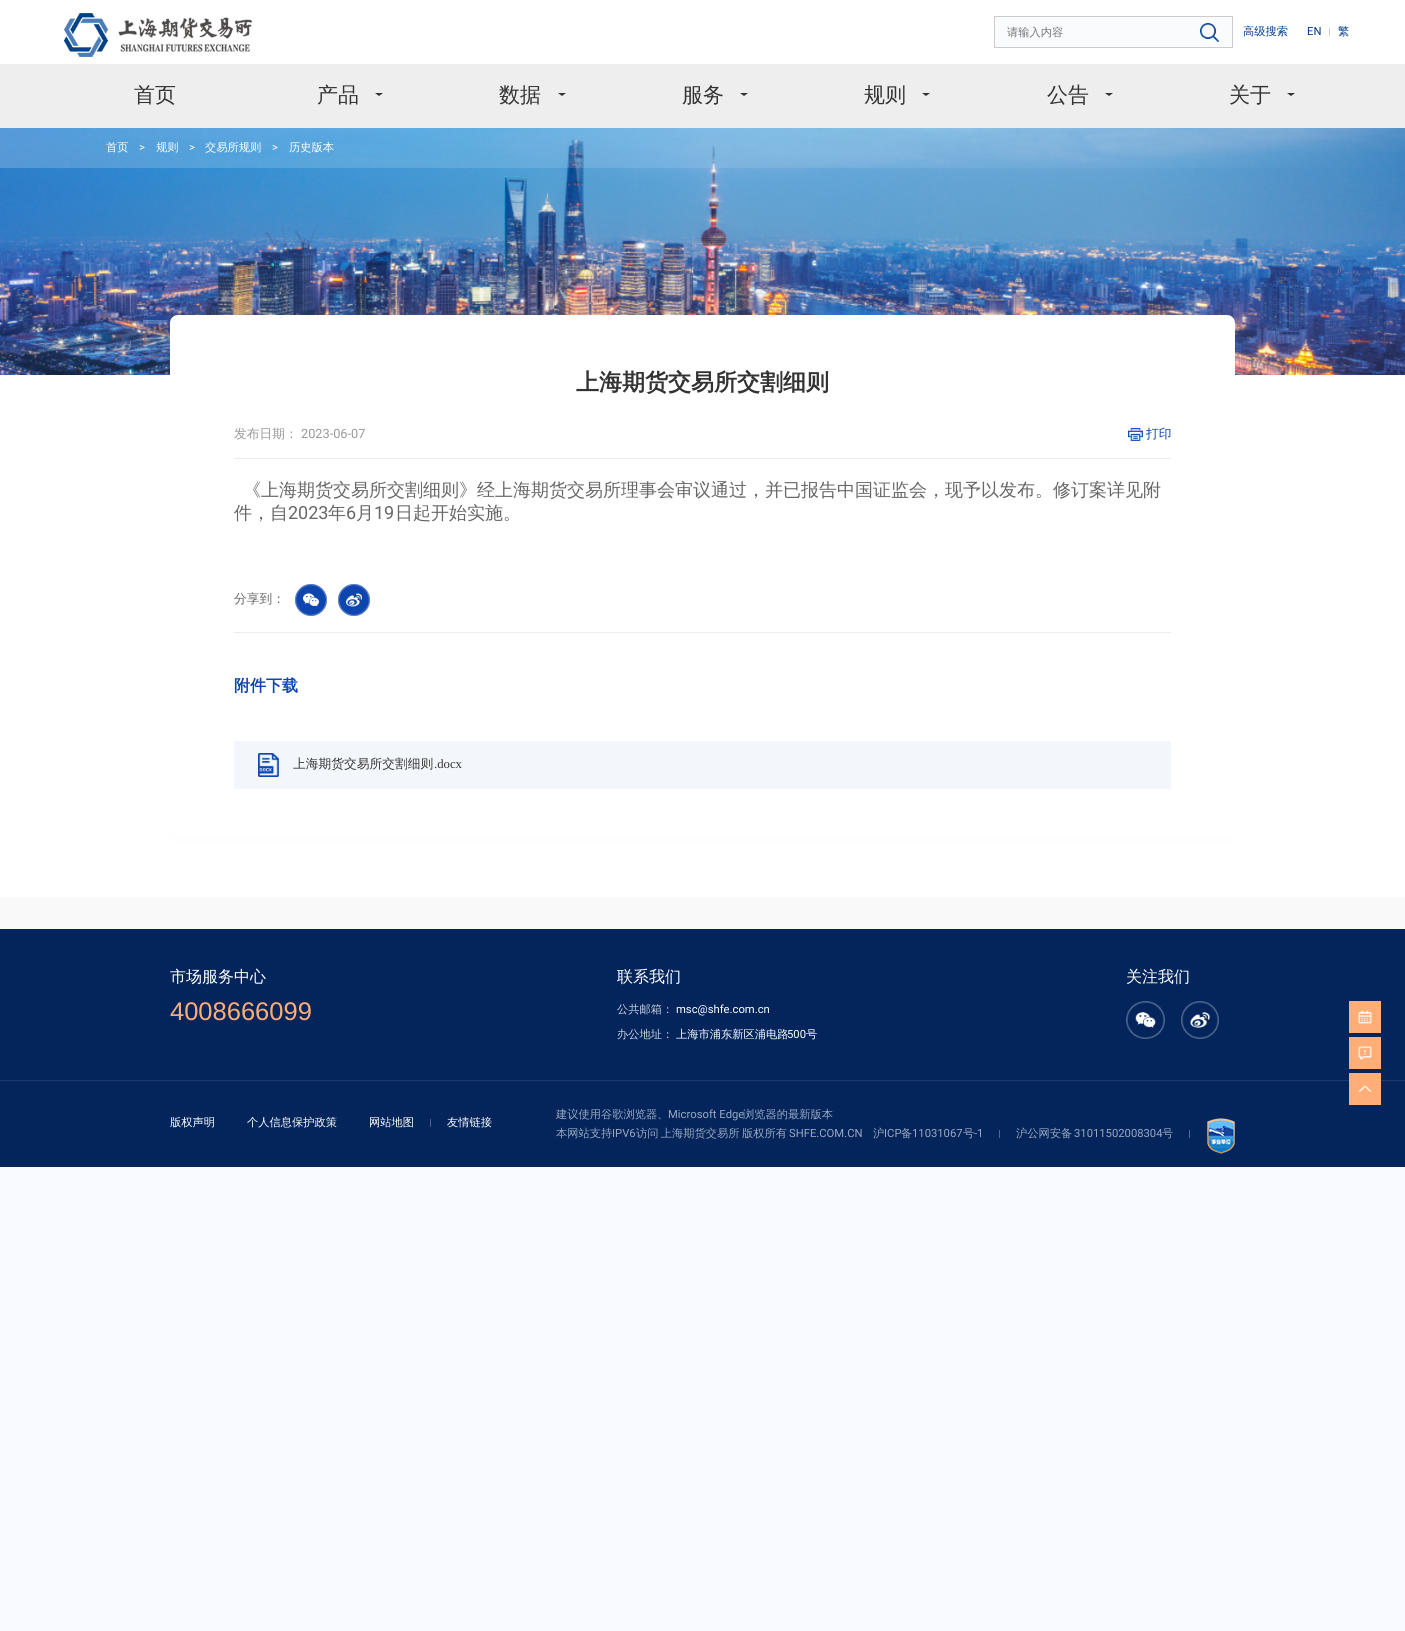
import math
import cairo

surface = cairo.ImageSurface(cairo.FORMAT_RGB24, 1405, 1631)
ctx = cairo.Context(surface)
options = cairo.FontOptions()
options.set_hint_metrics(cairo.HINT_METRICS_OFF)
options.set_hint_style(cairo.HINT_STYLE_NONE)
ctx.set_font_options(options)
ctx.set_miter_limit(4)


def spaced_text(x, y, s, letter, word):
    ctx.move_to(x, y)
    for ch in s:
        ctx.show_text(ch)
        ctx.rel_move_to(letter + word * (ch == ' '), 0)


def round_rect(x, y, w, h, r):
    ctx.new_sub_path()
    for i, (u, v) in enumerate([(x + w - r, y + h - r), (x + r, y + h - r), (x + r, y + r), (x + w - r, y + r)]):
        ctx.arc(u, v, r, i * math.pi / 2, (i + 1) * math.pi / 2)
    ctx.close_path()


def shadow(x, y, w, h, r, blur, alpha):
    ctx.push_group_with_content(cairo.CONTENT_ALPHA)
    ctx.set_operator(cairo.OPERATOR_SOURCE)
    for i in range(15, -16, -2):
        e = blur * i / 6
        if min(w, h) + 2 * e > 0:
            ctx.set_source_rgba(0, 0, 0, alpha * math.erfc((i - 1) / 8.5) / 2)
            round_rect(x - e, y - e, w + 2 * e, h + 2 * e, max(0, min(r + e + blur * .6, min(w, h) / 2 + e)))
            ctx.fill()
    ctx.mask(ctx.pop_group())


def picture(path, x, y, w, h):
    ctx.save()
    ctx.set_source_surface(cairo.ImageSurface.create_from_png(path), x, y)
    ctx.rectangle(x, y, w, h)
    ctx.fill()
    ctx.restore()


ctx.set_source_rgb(0.973, 0.98, 1)
ctx.paint()
ctx.set_source_rgb(1, 1, 1)
ctx.rectangle(0, 0, 1405, 64)
ctx.fill()
picture("img1.png", 64, 13, 188, 44)
ctx.set_source_rgb(0.98, 0.984, 0.988)
ctx.rectangle(994.5, 16.5, 238, 31)
ctx.fill_preserve()
ctx.set_source_rgb(0.8, 0.8, 0.8)
ctx.set_line_width(1)
ctx.stroke()
ctx.select_font_face("WenQuanYi Zen Hei Medium")
ctx.set_font_size(11.25)
ctx.set_source_rgb(0.459, 0.459, 0.459)
ctx.move_to(1007, 36)
ctx.show_text("请输入内容")
picture("img2.png", 1200, 23, 19, 19)
ctx.set_source_rgb(0, 0.243, 0.557)
ctx.move_to(1243, 35)
ctx.show_text("高级搜索")
ctx.select_font_face("Roboto")
ctx.move_to(1307, 35)
ctx.show_text("EN")
ctx.set_source_rgb(0.8, 0.8, 0.8)
ctx.rectangle(1329, 28, 1, 8)
ctx.fill()
ctx.select_font_face("WenQuanYi Zen Hei Medium")
ctx.set_source_rgb(0, 0.243, 0.557)
ctx.move_to(1338, 35)
ctx.show_text("繁")
ctx.set_source_rgb(0.933, 0.933, 0.933)
ctx.rectangle(0, 64, 1405, 64)
ctx.fill()
ctx.set_font_size(21)
ctx.set_source_rgb(0.2, 0.2, 0.2)
ctx.move_to(134, 102)
ctx.show_text("首页")
ctx.move_to(317, 102)
ctx.show_text("产品")
ctx.new_path()
ctx.move_to(375, 93)
ctx.line_to(383, 93)
ctx.line_to(379, 96)
ctx.close_path()
ctx.fill()
ctx.move_to(499, 102)
ctx.show_text("数据")
ctx.new_path()
ctx.move_to(558, 93)
ctx.line_to(566, 93)
ctx.line_to(562, 96)
ctx.close_path()
ctx.fill()
ctx.move_to(682, 102)
ctx.show_text("服务")
ctx.new_path()
ctx.move_to(740, 93)
ctx.line_to(748, 93)
ctx.line_to(744, 96)
ctx.close_path()
ctx.fill()
ctx.move_to(864, 102)
ctx.show_text("规则")
ctx.new_path()
ctx.move_to(922, 93)
ctx.line_to(930, 93)
ctx.line_to(926, 96)
ctx.close_path()
ctx.fill()
ctx.move_to(1047, 102)
ctx.show_text("公告")
ctx.new_path()
ctx.move_to(1105, 93)
ctx.line_to(1113, 93)
ctx.line_to(1109, 96)
ctx.close_path()
ctx.fill()
ctx.move_to(1229, 102)
ctx.show_text("关于")
ctx.new_path()
ctx.move_to(1287, 93)
ctx.line_to(1295, 93)
ctx.line_to(1291, 96)
ctx.close_path()
ctx.fill()
ctx.set_source_rgb(0.973, 0.973, 0.973)
ctx.rectangle(0, 897, 1405, 32)
ctx.fill()
picture("img3.png", 0, 128, 1405, 247)
ctx.set_font_size(11.25)
ctx.set_source_rgb(1, 1, 1)
ctx.move_to(106, 151)
ctx.show_text("首页")
ctx.select_font_face("Roboto")
ctx.move_to(139, 151)
ctx.show_text(">")
ctx.select_font_face("WenQuanYi Zen Hei Medium")
ctx.move_to(156, 151)
ctx.show_text("规则")
ctx.select_font_face("Roboto")
ctx.move_to(189, 151)
ctx.show_text(">")
ctx.select_font_face("WenQuanYi Zen Hei Medium")
ctx.move_to(205, 151)
ctx.show_text("交易所规则")
ctx.select_font_face("Roboto")
ctx.move_to(272, 151)
ctx.show_text(">")
ctx.select_font_face("WenQuanYi Zen Hei Medium")
ctx.move_to(289, 151)
ctx.show_text("历史版本")
ctx.rectangle(0, 375, 1405, 522)
ctx.fill()
ctx.set_source_rgb(0.933, 0.933, 0.933)
shadow(170, 319, 1065, 522, 8, 6, 0.1)
ctx.set_source_rgb(1, 1, 1)
round_rect(170, 315, 1065, 522, 8)
ctx.fill()
ctx.select_font_face("WenQuanYi Zen Hei", cairo.FONT_SLANT_NORMAL, cairo.FONT_WEIGHT_BOLD)
ctx.set_font_size(23)
ctx.set_source_rgb(0.2, 0.2, 0.2)
ctx.move_to(576, 390)
ctx.show_text("上海期货交易所交割细则")
ctx.set_source_rgb(0.929, 0.929, 0.929)
ctx.rectangle(234, 458, 937, 1)
ctx.fill()
ctx.select_font_face("WenQuanYi Zen Hei Medium")
ctx.set_font_size(12.75)
ctx.set_source_rgb(0.6, 0.6, 0.6)
ctx.move_to(234, 438)
ctx.show_text("发布日期：")
ctx.select_font_face("Roboto")
ctx.move_to(301, 438)
ctx.show_text("2023-06-07")
picture("img4.png", 1128, 428, 15, 13)
ctx.select_font_face("WenQuanYi Zen Hei Medium")
ctx.set_source_rgb(0.059, 0.271, 0.682)
ctx.move_to(1146, 438)
ctx.show_text("打印")
ctx.set_font_size(18)
ctx.set_source_rgb(0.4, 0.4, 0.4)
ctx.move_to(243, 496)
ctx.show_text("《上海期货交易所交割细则》经上海期货交易所理事会审议通过，并已报告中国证监会，现予以发布。修订案详见附")
ctx.move_to(234, 519)
ctx.show_text("件，自")
ctx.select_font_face("Roboto")
ctx.move_to(288, 519)
ctx.show_text("2023")
ctx.select_font_face("WenQuanYi Zen Hei Medium")
ctx.move_to(328, 519)
ctx.show_text("年")
ctx.select_font_face("Roboto")
ctx.move_to(346, 519)
ctx.show_text("6")
ctx.select_font_face("WenQuanYi Zen Hei Medium")
ctx.move_to(356, 519)
ctx.show_text("月")
ctx.select_font_face("Roboto")
ctx.move_to(374, 519)
ctx.show_text("19")
ctx.select_font_face("WenQuanYi Zen Hei Medium")
ctx.move_to(395, 519)
ctx.show_text("日起开始实施。")
ctx.set_source_rgb(0.929, 0.929, 0.929)
ctx.rectangle(234, 632, 937, 1)
ctx.fill()
ctx.set_font_size(12.75)
ctx.set_source_rgb(0.4, 0.4, 0.4)
ctx.move_to(234, 603)
ctx.show_text("分享到：")
ctx.set_source_rgb(0.059, 0.271, 0.682)
ctx.new_path()
ctx.arc(311, 600, 16, 0, 2 * math.pi)
ctx.fill()
picture("img5.png", 295, 584, 32, 32)
ctx.arc(354, 600, 16, 0, 2 * math.pi)
ctx.fill()
picture("img6.png", 338, 584, 32, 32)
ctx.select_font_face("WenQuanYi Zen Hei", cairo.FONT_SLANT_NORMAL, cairo.FONT_WEIGHT_BOLD)
ctx.set_font_size(16)
ctx.move_to(234, 691)
ctx.show_text("附件下载")
ctx.set_source_rgb(0.953, 0.965, 0.984)
ctx.rectangle(234, 741, 937, 48)
ctx.fill()
picture("img7.png", 258, 753, 21, 24)
ctx.select_font_face("WenQuanYi Zen Hei Medium")
ctx.set_font_size(12.75)
ctx.set_source_rgb(0.2, 0.2, 0.2)
ctx.move_to(293, 768)
ctx.show_text("上海期货交易所交割细则")
ctx.select_font_face("Liberation Serif")
ctx.move_to(434, 768)
ctx.show_text(".docx")
ctx.set_source_rgb(0.012, 0.145, 0.361)
ctx.rectangle(0, 929, 1405, 238)
ctx.fill()
ctx.select_font_face("WenQuanYi Zen Hei Medium")
ctx.set_font_size(16)
ctx.set_source_rgb(1, 1, 1)
ctx.move_to(170, 982)
ctx.show_text("市场服务中心")
ctx.select_font_face("Liberation Sans")
ctx.set_font_size(25.5)
ctx.set_source_rgb(0.996, 0.682, 0.463)
ctx.move_to(170, 1020)
ctx.show_text("4008666099")
ctx.select_font_face("WenQuanYi Zen Hei Medium")
ctx.set_font_size(16)
ctx.set_source_rgb(1, 1, 1)
ctx.move_to(617, 982)
ctx.show_text("联系我们")
ctx.set_font_size(11.25)
ctx.set_source_rgb(0.804, 0.827, 0.871)
ctx.move_to(617, 1013)
ctx.show_text("公共邮箱：")
ctx.select_font_face("Roboto")
ctx.set_source_rgb(1, 1, 1)
ctx.move_to(676, 1013)
ctx.show_text("msc@shfe.com.cn")
ctx.select_font_face("WenQuanYi Zen Hei Medium")
ctx.set_source_rgb(0.804, 0.827, 0.871)
ctx.move_to(617, 1038)
ctx.show_text("办公地址：")
ctx.set_source_rgb(1, 1, 1)
ctx.move_to(676, 1038)
ctx.show_text("上海市浦东新区浦电路")
ctx.select_font_face("Roboto")
ctx.move_to(787, 1038)
ctx.show_text("500")
ctx.select_font_face("WenQuanYi Zen Hei Medium")
ctx.move_to(806, 1038)
ctx.show_text("号")
ctx.set_font_size(16)
ctx.move_to(1126, 982)
ctx.show_text("关注我们")
picture("img8.png", 1126, 1001, 39, 38)
picture("img9.png", 1181, 1001, 38, 38)
ctx.set_source_rgb(0.996, 0.682, 0.463)
ctx.rectangle(1349, 1001, 32, 32)
ctx.fill()
picture("img10.png", 1358, 1010, 14, 14)
ctx.rectangle(1349, 1037, 32, 32)
ctx.fill()
picture("img11.png", 1358, 1046, 14, 14)
ctx.set_source_rgb(0.11, 0.231, 0.424)
ctx.rectangle(0, 1080, 1405, 1)
ctx.fill()
ctx.set_source_rgb(0.996, 0.682, 0.463)
ctx.rectangle(1349, 1073, 32, 32)
ctx.fill()
picture("img12.png", 1358, 1085, 14, 8)
ctx.set_font_size(11.25)
ctx.set_source_rgb(1, 1, 1)
ctx.move_to(170, 1126)
ctx.show_text("版权声明")
ctx.move_to(247, 1126)
ctx.show_text("个人信息保护政策")
ctx.move_to(369, 1126)
ctx.show_text("网站地图")
ctx.set_source_rgb(0.31, 0.4, 0.553)
ctx.rectangle(430, 1119, 1, 8)
ctx.fill()
ctx.set_source_rgb(1, 1, 1)
ctx.move_to(447, 1126)
ctx.show_text("友情链接")
ctx.set_source_rgb(0.604, 0.659, 0.745)
ctx.move_to(556, 1118)
ctx.show_text("建议使用谷歌浏览器、")
ctx.select_font_face("Roboto")
ctx.move_to(668, 1118)
ctx.show_text("Microsoft Edge")
ctx.select_font_face("WenQuanYi Zen Hei Medium")
ctx.move_to(743, 1118)
ctx.show_text("浏览器的最新版本")
ctx.move_to(556, 1137)
ctx.show_text("本网站支持")
ctx.select_font_face("Roboto")
ctx.move_to(612, 1137)
ctx.show_text("IPV6")
ctx.select_font_face("WenQuanYi Zen Hei Medium")
spaced_text(636, 1137, "访问 上海期货交易所 版权所有", 0, -1)
ctx.select_font_face("Roboto")
ctx.move_to(789, 1137)
ctx.show_text("SHFE.COM.CN")
ctx.select_font_face("WenQuanYi Zen Hei Medium")
ctx.move_to(873, 1137)
ctx.show_text("沪")
ctx.select_font_face("Roboto")
ctx.move_to(884, 1137)
ctx.show_text("ICP")
ctx.select_font_face("WenQuanYi Zen Hei Medium")
ctx.move_to(901, 1137)
ctx.show_text("备")
ctx.select_font_face("Roboto")
ctx.move_to(912, 1137)
ctx.show_text("11031067")
ctx.select_font_face("WenQuanYi Zen Hei Medium")
ctx.move_to(963, 1137)
ctx.show_text("号")
ctx.select_font_face("Roboto")
ctx.move_to(974, 1137)
ctx.show_text("-1")
ctx.set_source_rgb(0.31, 0.4, 0.553)
ctx.rectangle(999, 1130, 1, 8)
ctx.fill()
ctx.select_font_face("WenQuanYi Zen Hei Medium")
ctx.set_source_rgb(0.604, 0.659, 0.745)
ctx.move_to(1016, 1137)
ctx.show_text("沪公网安备")
ctx.select_font_face("Roboto")
ctx.move_to(1074, 1137)
ctx.show_text("31011502008304")
ctx.select_font_face("WenQuanYi Zen Hei Medium")
ctx.move_to(1162, 1137)
ctx.show_text("号")
ctx.set_source_rgb(0.31, 0.4, 0.553)
ctx.rectangle(1189, 1130, 1, 8)
ctx.fill()
picture("img13.png", 1207, 1118, 28, 36)
surface.write_to_png("page.png")
